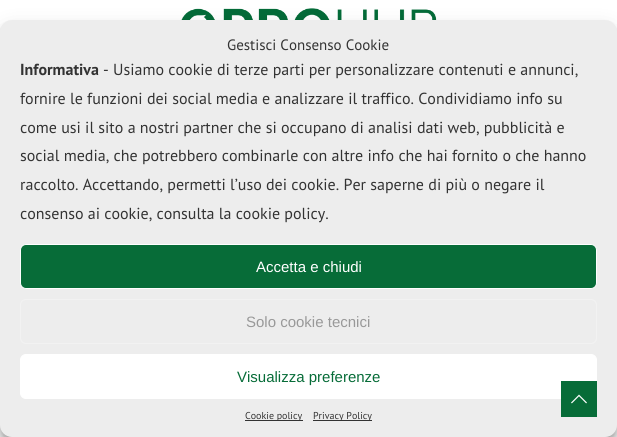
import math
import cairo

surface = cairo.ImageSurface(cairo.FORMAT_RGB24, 617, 437)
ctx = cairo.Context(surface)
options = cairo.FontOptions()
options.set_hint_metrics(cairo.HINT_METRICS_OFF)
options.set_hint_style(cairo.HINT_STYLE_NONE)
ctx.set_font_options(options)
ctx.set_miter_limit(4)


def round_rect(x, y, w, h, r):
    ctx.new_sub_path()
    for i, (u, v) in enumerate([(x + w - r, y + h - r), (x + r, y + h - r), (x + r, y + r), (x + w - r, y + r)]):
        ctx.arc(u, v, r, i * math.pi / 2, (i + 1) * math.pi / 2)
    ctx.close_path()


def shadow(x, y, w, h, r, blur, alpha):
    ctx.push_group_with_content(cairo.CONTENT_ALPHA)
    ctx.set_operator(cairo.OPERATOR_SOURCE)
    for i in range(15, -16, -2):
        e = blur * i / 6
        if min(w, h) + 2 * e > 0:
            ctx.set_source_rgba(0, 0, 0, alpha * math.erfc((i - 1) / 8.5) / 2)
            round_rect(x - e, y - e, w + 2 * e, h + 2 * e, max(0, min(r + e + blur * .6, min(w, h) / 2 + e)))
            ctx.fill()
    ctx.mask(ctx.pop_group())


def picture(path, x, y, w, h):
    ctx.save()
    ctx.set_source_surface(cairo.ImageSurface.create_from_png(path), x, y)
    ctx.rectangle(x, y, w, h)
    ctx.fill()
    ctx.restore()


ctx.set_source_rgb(1, 1, 1)
ctx.paint()
picture("img1.png", 181, 8, 256, 12)
ctx.set_source_rgb(0, 0, 0)
shadow(0, 26, 617, 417, 12, 3, 0.23)
shadow(0, 30, 617, 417, 12, 10, 0.19)
ctx.set_source_rgb(0.929, 0.929, 0.929)
round_rect(0, 20, 617, 417, 12)
ctx.fill()
ctx.select_font_face("PT Sans")
ctx.set_font_size(15)
ctx.set_source_rgb(0.2, 0.2, 0.2)
ctx.move_to(227, 50)
ctx.show_text("Gestisci Consenso Cookie")
ctx.select_font_face("PT Sans", cairo.FONT_SLANT_NORMAL, cairo.FONT_WEIGHT_BOLD)
ctx.set_font_size(16)
ctx.move_to(20, 75)
ctx.show_text("Informativa")
ctx.select_font_face("PT Sans")
ctx.move_to(103, 75)
ctx.show_text("- Usiamo cookie di terze parti per personalizzare contenuti e annunci,")
ctx.move_to(20, 104)
ctx.show_text("fornire le funzioni dei social media e analizzare il traffico. Condividiamo info su")
ctx.move_to(20, 133)
ctx.show_text("come usi il sito a nostri partner che si occupano di analisi dati web, pubblicità e")
ctx.move_to(20, 161)
ctx.show_text("social media, che potrebbero combinarle con altre info che hai fornito o che hanno")
ctx.move_to(20, 190)
ctx.show_text("raccolto. Accettando, permetti l’uso dei cookie. Per saperne di più o negare il")
ctx.move_to(20, 219)
ctx.show_text("consenso ai cookie, consulta la cookie policy.")
ctx.set_source_rgb(0.031, 0.424, 0.22)
round_rect(20.5, 244.5, 576, 44, 5.5)
ctx.fill_preserve()
ctx.set_source_rgb(1, 1, 1)
ctx.set_line_width(1)
ctx.stroke()
ctx.select_font_face("Liberation Sans")
ctx.set_font_size(15)
ctx.move_to(256, 272)
ctx.show_text("Accetta e chiudi")
round_rect(20.5, 299.5, 576, 44, 5.5)
ctx.set_source_rgb(0.949, 0.949, 0.949)
ctx.stroke()
ctx.set_source_rgb(0.6, 0.6, 0.6)
ctx.move_to(246, 327)
ctx.show_text("Solo cookie tecnici")
ctx.set_source_rgb(1, 1, 1)
round_rect(20.5, 354.5, 576, 44, 5.5)
ctx.fill_preserve()
ctx.stroke()
ctx.set_source_rgb(0.031, 0.424, 0.22)
ctx.move_to(237, 382)
ctx.show_text("Visualizza preferenze")
ctx.set_source_rgb(0.2, 0.2, 0.2)
ctx.rectangle(245, 420, 58, 1)
ctx.fill()
ctx.select_font_face("PT Sans")
ctx.set_font_size(10)
ctx.move_to(245, 419)
ctx.show_text("Cookie policy")
ctx.rectangle(313, 420, 59, 1)
ctx.fill()
ctx.move_to(313, 419)
ctx.show_text("Privacy Policy")
ctx.set_source_rgb(0.031, 0.424, 0.22)
ctx.rectangle(561, 381, 36, 36)
ctx.fill()
picture("img2.png", 571, 394, 16, 10)
surface.write_to_png("page.png")
